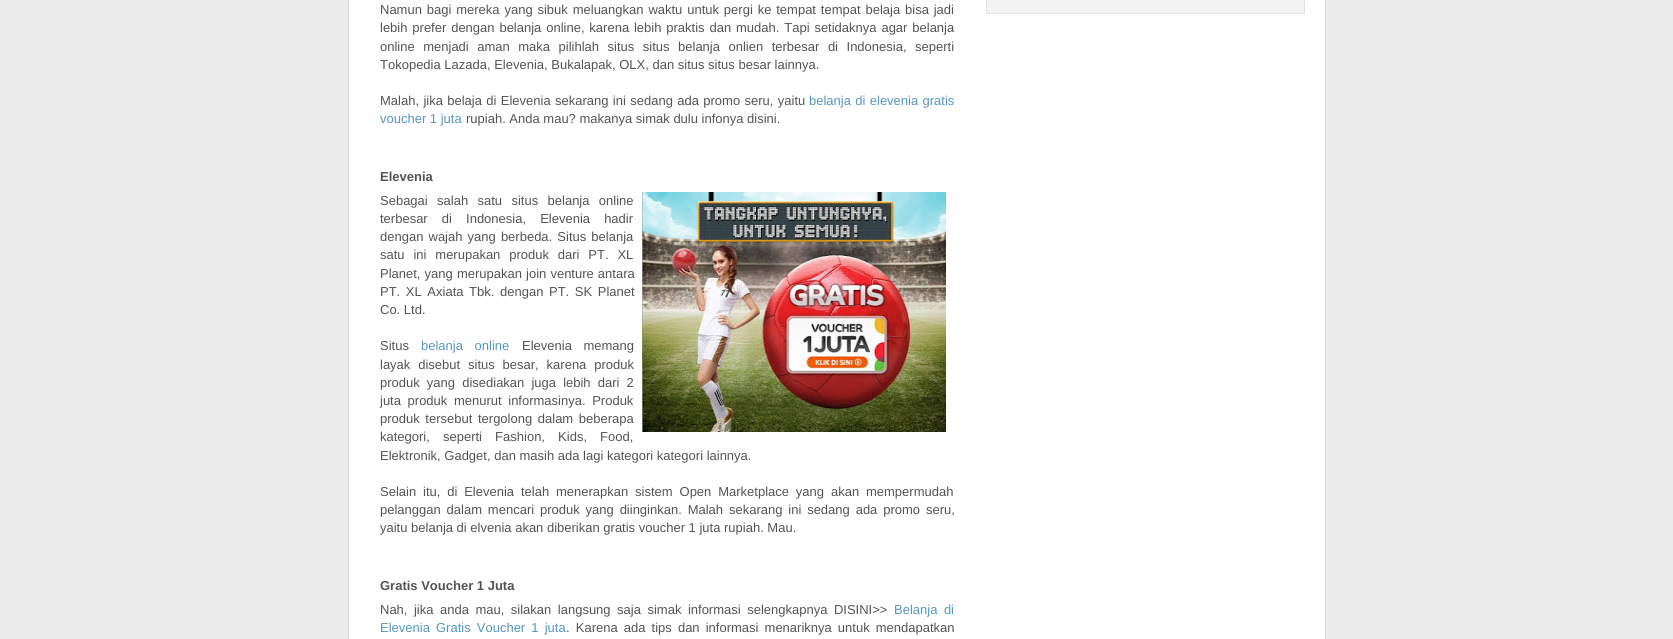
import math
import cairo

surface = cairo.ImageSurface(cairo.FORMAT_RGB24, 1673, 639)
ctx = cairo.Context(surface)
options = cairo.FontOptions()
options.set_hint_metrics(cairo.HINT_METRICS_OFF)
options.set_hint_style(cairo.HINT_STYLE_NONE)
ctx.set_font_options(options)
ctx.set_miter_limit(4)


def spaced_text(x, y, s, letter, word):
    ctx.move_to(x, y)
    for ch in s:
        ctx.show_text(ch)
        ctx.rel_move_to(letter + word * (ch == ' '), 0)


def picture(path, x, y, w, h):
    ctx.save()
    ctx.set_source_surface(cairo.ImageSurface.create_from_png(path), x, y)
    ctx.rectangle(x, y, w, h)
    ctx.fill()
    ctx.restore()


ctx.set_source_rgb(0.922, 0.922, 0.922)
ctx.paint()
ctx.set_source_rgb(1, 1, 1)
ctx.rectangle(348.5, -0.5, 977, 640)
ctx.fill_preserve()
ctx.set_source_rgb(0.859, 0.859, 0.859)
ctx.set_line_width(1)
ctx.stroke()
ctx.select_font_face("Liberation Sans")
ctx.set_font_size(13)
ctx.set_source_rgb(0.329, 0.329, 0.329)
spaced_text(380, 14, "Namun bagi mereka yang sibuk meluangkan waktu untuk pergi ke tempat tempat belaja bisa jadi", 0, 1.25)
spaced_text(380, 32, "lebih prefer dengan belanja online, karena lebih praktis dan mudah. Tapi setidaknya agar belanja", 0, 1.25)
spaced_text(380, 51, "online menjadi aman maka pilihlah situs situs belanja onlien terbesar di Indonesia, seperti", 0, 4.9)
ctx.move_to(380, 69)
ctx.show_text("Tokopedia Lazada, Elevenia, Bukalapak, OLX, dan situs situs besar lainnya.")
spaced_text(380, 105, "Malah, jika belaja di Elevenia sekarang ini sedang ada promo seru, yaitu", 0, 0.75)
ctx.set_source_rgb(0.333, 0.588, 0.765)
spaced_text(809, 105, "belanja di elevenia gratis", 0, 0.75)
ctx.move_to(380, 123)
ctx.show_text("voucher 1 juta")
ctx.set_source_rgb(0.329, 0.329, 0.329)
ctx.move_to(466, 123)
ctx.show_text("rupiah. Anda mau? makanya simak dulu infonya disini.")
ctx.select_font_face("Liberation Sans", cairo.FONT_SLANT_NORMAL, cairo.FONT_WEIGHT_BOLD)
ctx.move_to(380, 181)
ctx.show_text("Elevenia")
ctx.select_font_face("Liberation Sans")
spaced_text(380, 205, "Sebagai salah satu situs belanja online", 0, 5.75)
spaced_text(380, 223, "terbesar di Indonesia, Elevenia hadir", 0, 10.5)
spaced_text(380, 241, "dengan wajah yang berbeda. Situs belanja", 0, 1.5)
spaced_text(380, 259, "satu ini merupakan produk dari PT. XL", 0, 5.25)
spaced_text(380, 278, "Planet, yang merupakan join venture antara", 0, 0.5)
spaced_text(380, 296, "PT. XL Axiata Tbk. dengan PT. SK Planet", 0, 2)
ctx.move_to(380, 314)
ctx.show_text("Co. Ltd.")
picture("img1.png", 642, 192, 304, 240)
ctx.move_to(380, 350)
ctx.show_text("Situs")
ctx.set_source_rgb(0.333, 0.588, 0.765)
spaced_text(421, 350, "belanja online", 0, 8)
ctx.set_source_rgb(0.329, 0.329, 0.329)
spaced_text(522, 350, "Elevenia memang", 0, 8)
spaced_text(380, 369, "layak disebut situs besar, karena produk", 0, 4.25)
spaced_text(380, 387, "produk yang disediakan juga lebih dari 2", 0, 3.5)
spaced_text(380, 405, "juta produk menurut informasinya. Produk", 0, 3)
spaced_text(380, 423, "produk tersebut tergolong dalam beberapa", 0, 2)
spaced_text(380, 441, "kategori, seperti Fashion, Kids, Food,", 0, 9.5)
ctx.move_to(380, 460)
ctx.show_text("Elektronik, Gadget, dan masih ada lagi kategori kategori lainnya.")
spaced_text(380, 496, "Selain itu, di Elevenia telah menerapkan sistem Open Marketplace yang akan mempermudah", 0, 3.25)
spaced_text(380, 514, "pelanggan dalam mencari produk yang diinginkan. Malah sekarang ini sedang ada promo seru,", 0, 2.25)
ctx.move_to(380, 532)
ctx.show_text("yaitu belanja di elvenia akan diberikan gratis voucher 1 juta rupiah. Mau.")
ctx.select_font_face("Liberation Sans", cairo.FONT_SLANT_NORMAL, cairo.FONT_WEIGHT_BOLD)
ctx.move_to(380, 590)
ctx.show_text("Gratis Voucher 1 Juta")
ctx.select_font_face("Liberation Sans")
spaced_text(380, 614, "Nah, jika anda mau, silakan langsung saja simak informasi selengkapnya DISINI>>", 0, 2.9)
ctx.set_source_rgb(0.333, 0.588, 0.765)
spaced_text(894, 614, "Belanja di", 0, 2.9)
spaced_text(380, 632, "Elevenia Gratis Voucher 1 juta", 0, 2.5)
ctx.set_source_rgb(0.329, 0.329, 0.329)
spaced_text(566, 632, ". Karena ada tips dan informasi menariknya untuk mendapatkan", 0, 2.5)
ctx.set_source_rgb(0.953, 0.953, 0.953)
ctx.rectangle(986.5, -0.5, 318, 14)
ctx.fill_preserve()
ctx.set_source_rgb(0.894, 0.894, 0.894)
ctx.stroke()
surface.write_to_png("page.png")
